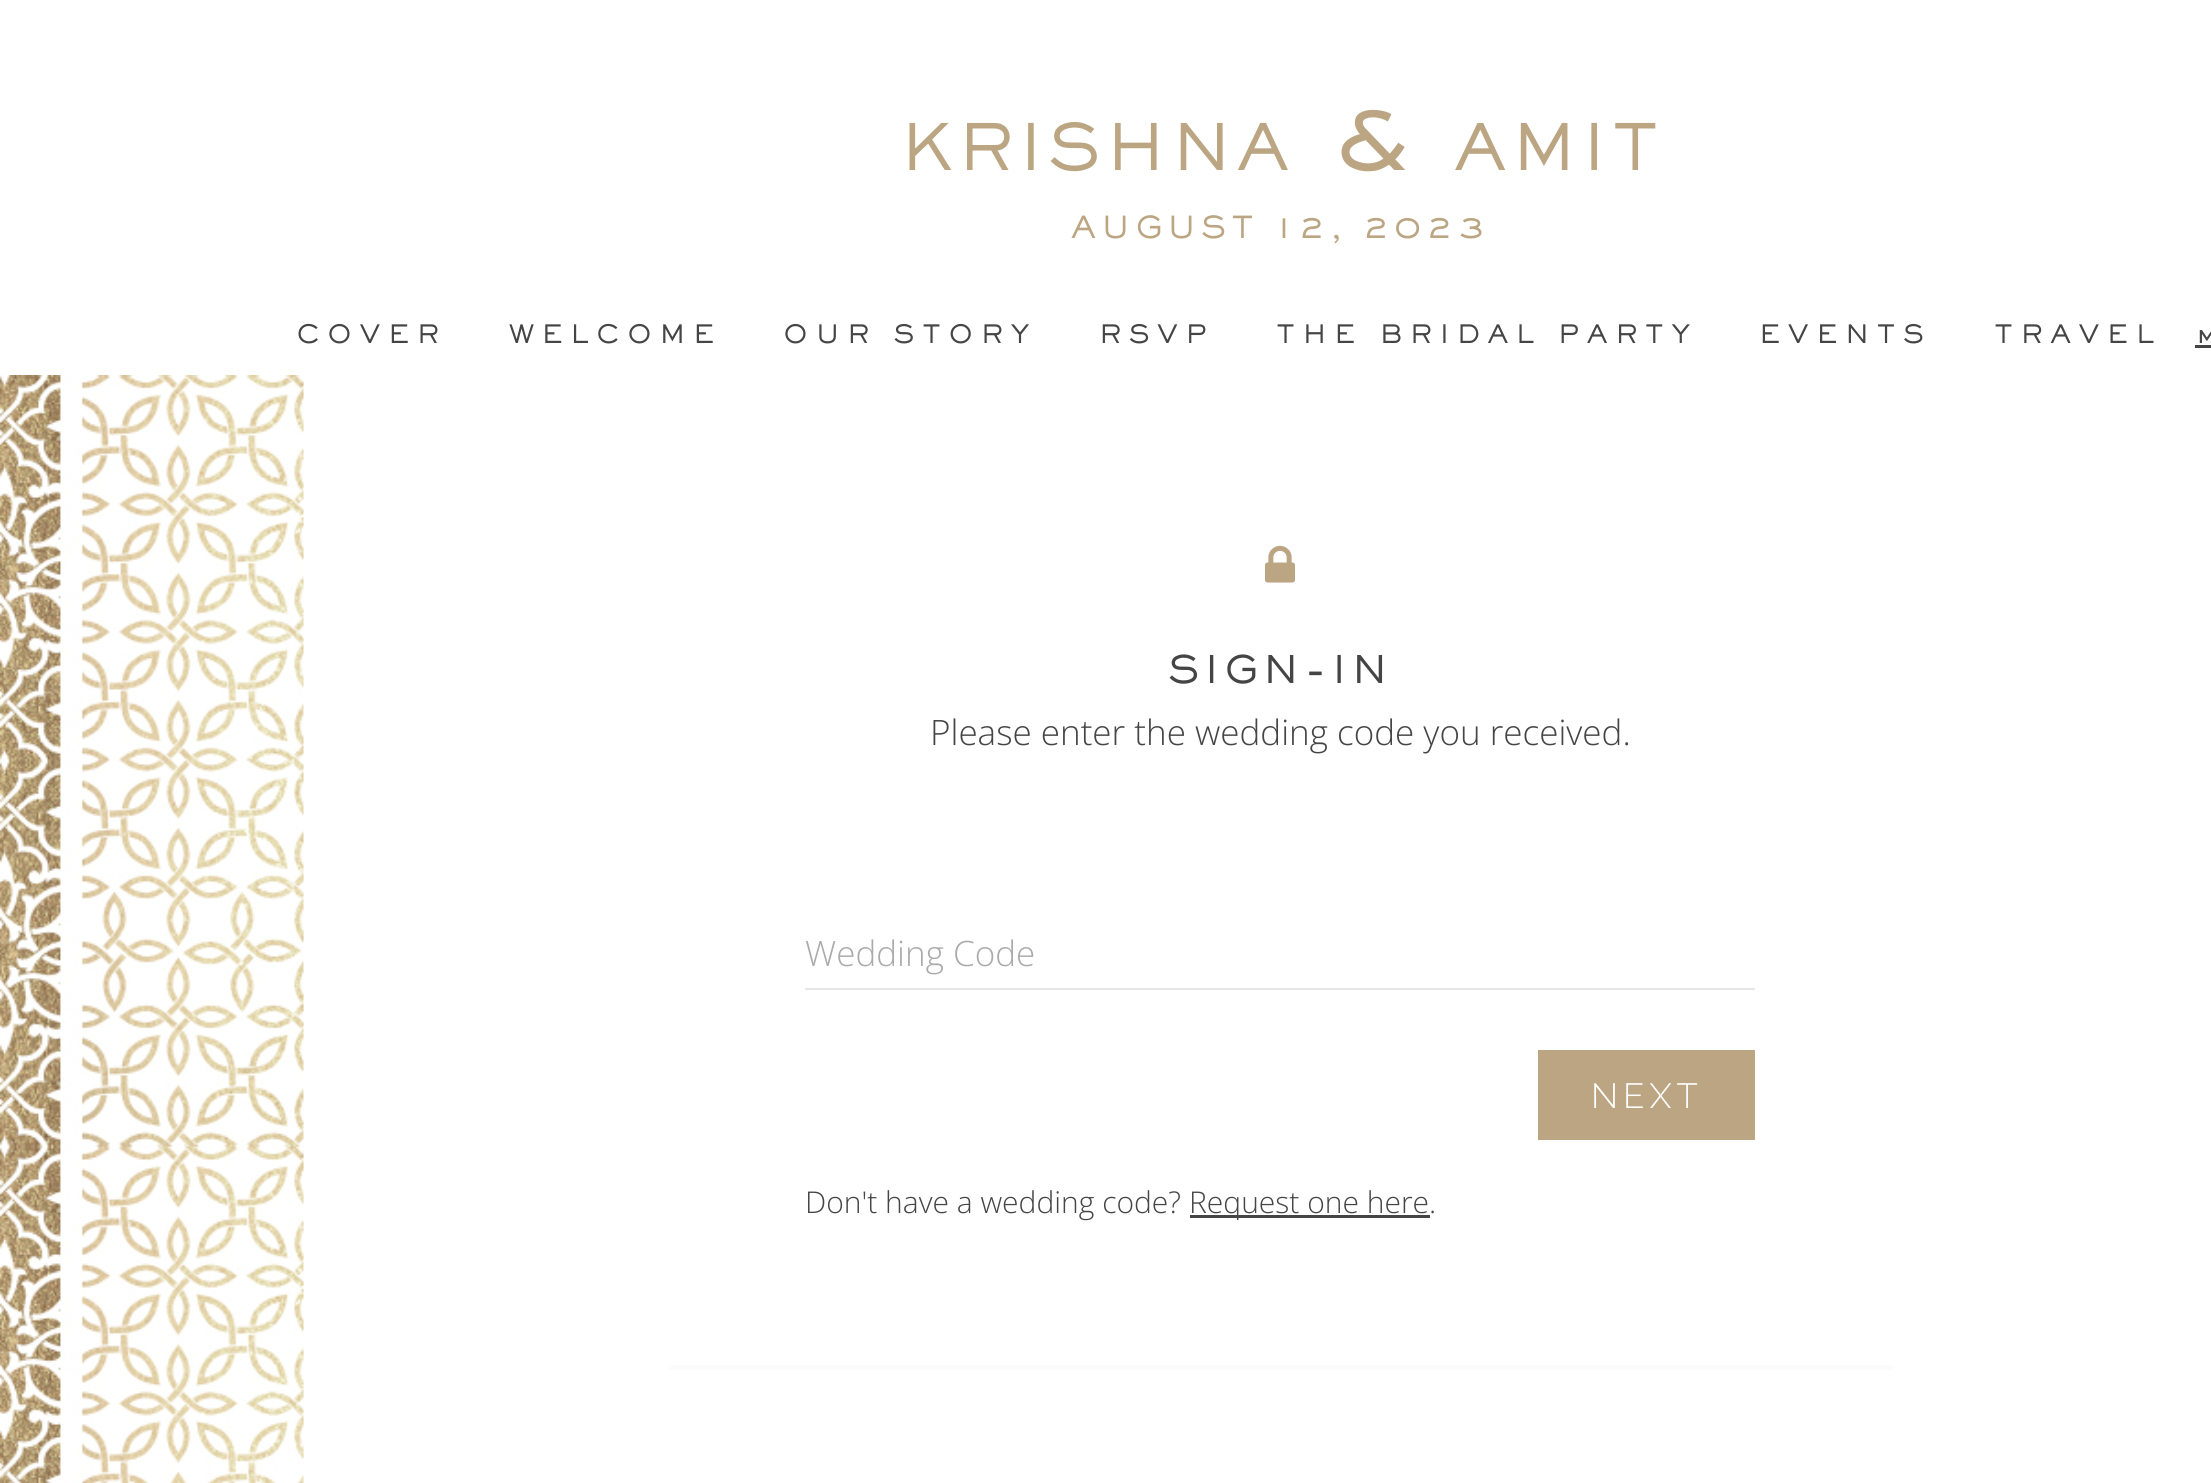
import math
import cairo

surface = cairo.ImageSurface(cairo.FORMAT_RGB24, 2211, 1483)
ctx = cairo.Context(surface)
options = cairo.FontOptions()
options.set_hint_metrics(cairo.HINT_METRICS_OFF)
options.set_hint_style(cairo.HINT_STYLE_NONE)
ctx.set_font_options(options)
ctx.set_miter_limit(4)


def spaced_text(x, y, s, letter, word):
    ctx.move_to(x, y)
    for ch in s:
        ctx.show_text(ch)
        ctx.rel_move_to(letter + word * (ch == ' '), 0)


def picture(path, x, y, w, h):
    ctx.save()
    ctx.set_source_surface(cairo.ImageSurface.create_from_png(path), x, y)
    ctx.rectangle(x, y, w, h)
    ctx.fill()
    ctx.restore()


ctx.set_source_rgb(1, 1, 1)
ctx.paint()
ctx.select_font_face("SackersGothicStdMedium")
ctx.set_font_size(63)
ctx.set_source_rgb(0.733, 0.647, 0.51)
spaced_text(900, 170, "KRISHNA", 5, 0)
ctx.set_font_size(90)
spaced_text(1333, 170, "&", 5, 0)
ctx.set_font_size(63)
spaced_text(1454, 170, "AMIT", 5, 0)
ctx.set_font_size(30)
spaced_text(1071, 238, "AUGUST 12, 2023", 5, 0)
ctx.set_font_size(25)
ctx.set_source_rgb(0.271, 0.271, 0.271)
spaced_text(296, 343, "COVER", 7.5, 0)
spaced_text(509, 343, "WELCOME", 7.5, 0)
spaced_text(783, 343, "OUR STORY", 7.5, 0)
spaced_text(1099, 343, "RSVP", 7.5, 0)
spaced_text(1276, 343, "THE BRIDAL PARTY", 7.5, 0)
spaced_text(1759, 343, "EVENTS", 7.5, 0)
spaced_text(1994, 343, "TRAVEL", 7.5, 0)
ctx.move_to(2196, 343)
ctx.show_text("m")
ctx.rectangle(2195, 345, 16, 3)
ctx.fill()
picture("img1.png", 0, 375, 305, 1108)
ctx.set_source_rgb(0.988, 0.988, 0.988)
ctx.new_path()
ctx.move_to(668, 1365)
ctx.line_to(668, 1370)
ctx.line_to(1893, 1370)
ctx.line_to(1893, 455)
ctx.line_to(1892, 455)
ctx.line_to(1892, 1365)
ctx.close_path()
ctx.fill()
ctx.set_source_rgb(1, 1, 1)
ctx.rectangle(1892, 455, 1, 910)
ctx.fill()
picture("img2.png", 1265, 545, 30, 38)
ctx.set_font_size(37.5)
ctx.set_source_rgb(0.271, 0.271, 0.271)
spaced_text(1168, 683, "SIGN-IN", 5, 0)
ctx.select_font_face("Open Sans Light")
ctx.set_font_size(35)
ctx.move_to(930, 745)
ctx.show_text("Please enter the wedding code you received.")
ctx.set_source_rgb(0.667, 0.667, 0.667)
ctx.move_to(805, 966)
ctx.show_text("Wedding Code")
ctx.set_source_rgb(0.902, 0.902, 0.902)
ctx.rectangle(805, 988, 950, 2)
ctx.fill()
ctx.set_source_rgb(0.733, 0.647, 0.51)
ctx.rectangle(1538, 1050, 217, 90)
ctx.fill()
ctx.select_font_face("Raleway Light")
ctx.set_source_rgb(1, 1, 1)
spaced_text(1591, 1108, "NEXT", 5, 0)
ctx.select_font_face("Open Sans Light")
ctx.set_font_size(30)
ctx.set_source_rgb(0.271, 0.271, 0.271)
ctx.move_to(805, 1213)
ctx.show_text("Don't have a wedding code?")
ctx.rectangle(1190, 1215, 240, 3)
ctx.fill()
ctx.move_to(1189, 1213)
ctx.show_text("Request one here.")
surface.write_to_png("page.png")
